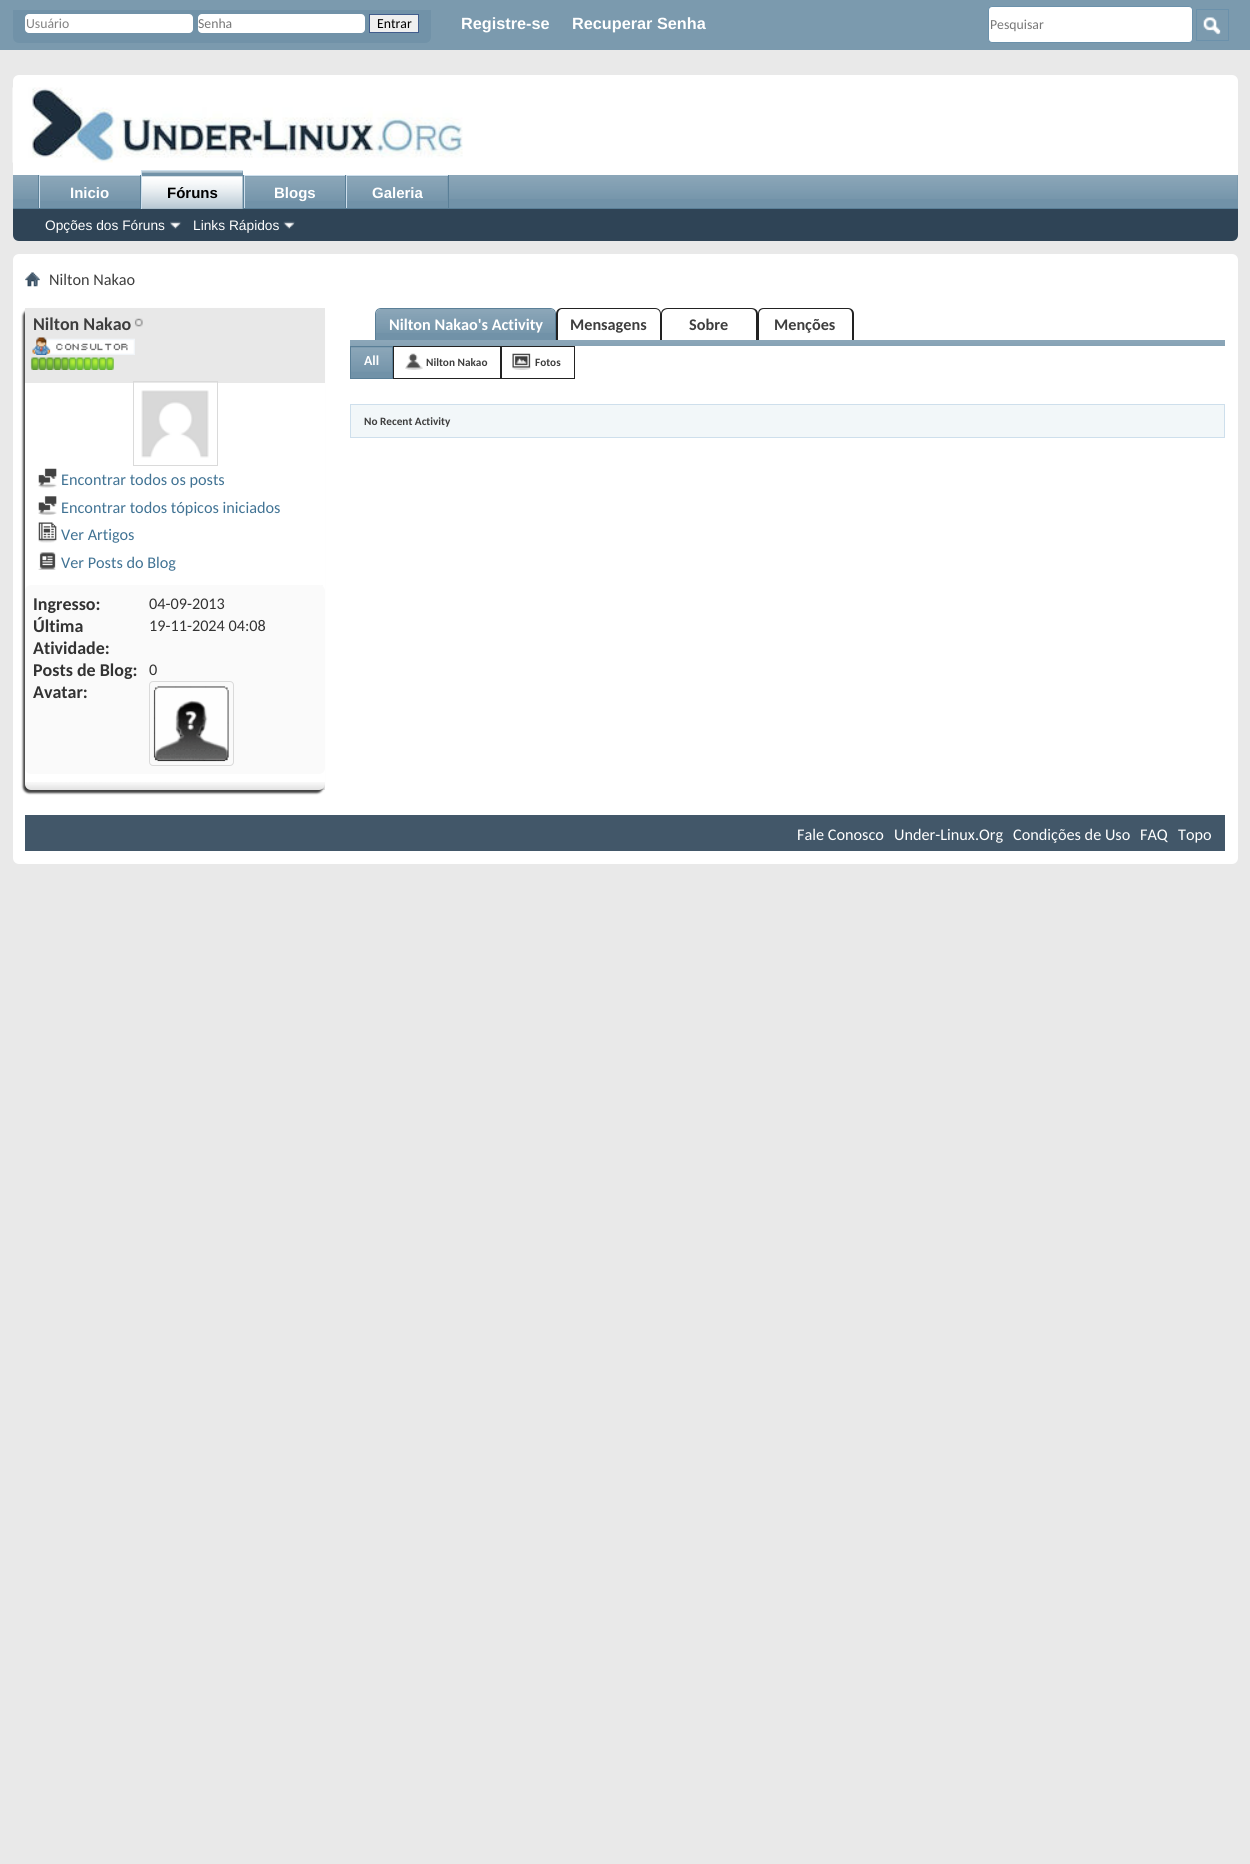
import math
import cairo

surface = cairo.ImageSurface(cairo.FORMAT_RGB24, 1250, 1864)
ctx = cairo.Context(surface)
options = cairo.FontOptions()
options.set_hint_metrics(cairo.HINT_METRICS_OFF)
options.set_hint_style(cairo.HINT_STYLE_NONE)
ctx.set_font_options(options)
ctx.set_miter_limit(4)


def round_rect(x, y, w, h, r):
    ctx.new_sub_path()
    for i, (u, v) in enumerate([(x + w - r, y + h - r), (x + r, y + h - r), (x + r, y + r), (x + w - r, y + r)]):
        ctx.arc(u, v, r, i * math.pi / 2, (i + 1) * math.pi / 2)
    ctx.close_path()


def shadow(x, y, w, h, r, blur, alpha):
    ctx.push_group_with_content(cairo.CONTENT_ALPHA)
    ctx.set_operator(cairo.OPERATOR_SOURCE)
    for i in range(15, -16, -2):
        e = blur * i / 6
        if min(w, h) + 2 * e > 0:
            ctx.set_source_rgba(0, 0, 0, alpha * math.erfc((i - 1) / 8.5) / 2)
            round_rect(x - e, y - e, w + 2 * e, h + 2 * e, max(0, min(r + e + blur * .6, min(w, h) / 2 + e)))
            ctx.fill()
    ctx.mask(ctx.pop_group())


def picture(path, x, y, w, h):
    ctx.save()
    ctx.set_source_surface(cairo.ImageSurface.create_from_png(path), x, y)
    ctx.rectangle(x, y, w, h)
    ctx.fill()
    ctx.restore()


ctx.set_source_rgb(0.914, 0.914, 0.914)
ctx.paint()
ctx.set_source_rgb(0.482, 0.604, 0.682)
ctx.rectangle(0, 0, 1250, 50)
ctx.fill()
ctx.set_source_rgb(0.443, 0.573, 0.659)
ctx.new_path()
ctx.move_to(13, 10)
ctx.line_to(431, 10)
ctx.line_to(431, 37)
ctx.curve_to(431, 40.5, 428.5, 43, 425, 43)
ctx.line_to(19, 43)
ctx.curve_to(15.5, 43, 13, 40.5, 13, 37)
ctx.close_path()
ctx.fill()
ctx.set_source_rgb(1, 1, 1)
round_rect(25, 14, 168, 19, 4)
ctx.fill()
ctx.select_font_face("Carlito")
ctx.set_font_size(13.75)
ctx.set_source_rgb(0.51, 0.51, 0.51)
ctx.move_to(26, 28)
ctx.show_text("Usuário")
ctx.set_source_rgb(1, 1, 1)
round_rect(198, 14, 167, 19, 4)
ctx.fill()
ctx.set_source_rgb(0.467, 0.467, 0.467)
ctx.move_to(198, 28)
ctx.show_text("Senha")
ctx.set_source_rgb(0.937, 0.937, 0.937)
ctx.rectangle(369.5, 14.5, 49, 18)
ctx.fill_preserve()
ctx.set_source_rgb(0.255, 0.365, 0.553)
ctx.set_line_width(1)
ctx.stroke()
ctx.set_source_rgb(0, 0, 0)
ctx.move_to(377, 28)
ctx.show_text("Entrar")
ctx.select_font_face("Liberation Sans", cairo.FONT_SLANT_NORMAL, cairo.FONT_WEIGHT_BOLD)
ctx.set_font_size(16.25)
ctx.set_source_rgb(1, 1, 1)
ctx.move_to(461, 29)
ctx.show_text("Registre-se")
ctx.move_to(572, 29)
ctx.show_text("Recuperar Senha")
round_rect(988.5, 6.5, 204, 36, 3.5)
ctx.fill_preserve()
ctx.set_source_rgb(0.42, 0.569, 0.671)
ctx.stroke()
ctx.select_font_face("Carlito")
ctx.set_font_size(13.75)
ctx.set_source_rgb(0.467, 0.467, 0.467)
ctx.move_to(990, 29)
ctx.show_text("Pesquisar")
ctx.rectangle(1196.5, 9.5, 32, 31)
ctx.set_source_rgb(0.42, 0.569, 0.671)
ctx.stroke()
picture("img1.png", 1203, 17, 18, 18)
ctx.set_source_rgb(1, 1, 1)
round_rect(13, 75, 1225, 166, 6)
ctx.fill()
picture("img2.png", 12, 87, 451, 76)
ctx.set_source_rgb(0.184, 0.267, 0.337)
ctx.new_path()
ctx.move_to(13, 175)
ctx.line_to(1238, 175)
ctx.line_to(1238, 235)
ctx.curve_to(1238, 238.5, 1235.5, 241, 1232, 241)
ctx.line_to(19, 241)
ctx.curve_to(15.5, 241, 13, 238.5, 13, 235)
ctx.close_path()
ctx.fill()
ctx.set_source_rgb(0.443, 0.573, 0.659)
ctx.rectangle(13, 175, 1225, 33)
ctx.fill()
picture("img3.png", 13, 175, 1225, 24)
ctx.set_source_rgb(0.353, 0.498, 0.592)
ctx.rectangle(140, 175, 1, 34)
ctx.fill()
ctx.rectangle(38, 175, 1, 34)
ctx.fill()
ctx.set_source_rgb(0.443, 0.573, 0.659)
ctx.rectangle(40, 176, 100, 23)
ctx.fill()
picture("img4.png", 38, 176, 102, 25)
ctx.set_source_rgb(0.808, 0.875, 0.922)
ctx.rectangle(39, 175, 101, 1)
ctx.fill()
ctx.rectangle(39, 175, 1, 34)
ctx.fill()
ctx.select_font_face("Liberation Sans", cairo.FONT_SLANT_NORMAL, cairo.FONT_WEIGHT_BOLD)
ctx.set_font_size(15)
ctx.set_source_rgb(1, 1, 1)
ctx.move_to(70, 198)
ctx.show_text("Inicio")
ctx.set_source_rgb(0.353, 0.498, 0.592)
ctx.rectangle(243, 175, 1, 33)
ctx.fill()
ctx.rectangle(345, 175, 1, 34)
ctx.fill()
ctx.set_source_rgb(0.443, 0.573, 0.659)
ctx.rectangle(245, 176, 100, 23)
ctx.fill()
picture("img4.png", 243, 176, 102, 25)
ctx.set_source_rgb(0.808, 0.875, 0.922)
ctx.rectangle(244, 175, 101, 1)
ctx.fill()
ctx.rectangle(244, 175, 1, 34)
ctx.fill()
ctx.set_source_rgb(0.353, 0.498, 0.592)
ctx.rectangle(448, 175, 1, 34)
ctx.fill()
ctx.set_source_rgb(0.808, 0.875, 0.922)
ctx.rectangle(346, 175, 102, 1)
ctx.fill()
ctx.rectangle(346, 175, 1, 34)
ctx.fill()
ctx.set_source_rgb(0.353, 0.498, 0.592)
ctx.rectangle(13, 208, 1225, 1)
ctx.fill()
ctx.set_source_rgb(0.443, 0.573, 0.659)
ctx.rectangle(142, 171, 101, 38)
ctx.fill()
picture("img5.png", 142, 171, 101, 38)
ctx.set_source_rgb(0.808, 0.875, 0.922)
ctx.rectangle(141, 170, 102, 1)
ctx.fill()
ctx.rectangle(141, 170, 1, 39)
ctx.fill()
ctx.set_source_rgb(0, 0, 0)
ctx.move_to(167, 198)
ctx.show_text("Fóruns")
ctx.set_source_rgb(1, 1, 1)
ctx.move_to(274, 198)
ctx.show_text("Blogs")
ctx.set_source_rgb(0.443, 0.573, 0.659)
ctx.rectangle(347, 176, 101, 23)
ctx.fill()
picture("img6.png", 347, 176, 101, 25)
ctx.set_source_rgb(1, 1, 1)
ctx.move_to(372, 198)
ctx.show_text("Galeria")
ctx.select_font_face("Liberation Sans")
ctx.set_font_size(13.75)
ctx.move_to(45, 230)
ctx.show_text("Opções dos Fóruns")
picture("img7.png", 170, 221, 12, 8)
ctx.move_to(193, 230)
ctx.show_text("Links Rápidos")
picture("img8.png", 283, 221, 12, 8)
round_rect(13, 254, 1225, 610, 6)
ctx.fill()
picture("img9.png", 25, 272, 15, 15)
ctx.select_font_face("Carlito")
ctx.set_font_size(16.25)
ctx.set_source_rgb(0.243, 0.243, 0.243)
ctx.move_to(49, 285)
ctx.show_text("Nilton Nakao")
ctx.set_source_rgb(0.259, 0.259, 0.259)
shadow(23, 310, 300, 483, 6, 1, 1)
ctx.set_source_rgb(1, 1, 1)
round_rect(25, 308, 300, 482, 6)
ctx.fill()
ctx.set_source_rgb(0.91, 0.91, 0.91)
ctx.rectangle(25, 308, 300, 75)
ctx.fill()
ctx.select_font_face("Carlito", cairo.FONT_SLANT_NORMAL, cairo.FONT_WEIGHT_BOLD)
ctx.set_font_size(18)
ctx.set_source_rgb(0.243, 0.243, 0.243)
ctx.move_to(33, 330)
ctx.show_text("Nilton Nakao")
picture("img10.png", 134, 318, 9, 9)
picture("img11.png", 32, 337, 103, 18)
picture("img12.png", 30, 357, 9, 13)
picture("img13.png", 38, 357, 9, 13)
picture("img14.png", 46, 357, 8, 13)
picture("img15.png", 53, 357, 9, 13)
picture("img14.png", 61, 357, 8, 13)
picture("img16.png", 68, 357, 9, 13)
picture("img17.png", 76, 357, 8, 13)
picture("img18.png", 83, 357, 9, 13)
picture("img17.png", 91, 357, 8, 13)
picture("img18.png", 98, 357, 9, 13)
picture("img17.png", 106, 357, 8, 13)
picture("img19.png", 141, 390, 68, 68)
ctx.rectangle(133.5, 381.5, 84, 84)
ctx.set_source_rgb(0.855, 0.855, 0.855)
ctx.stroke()
picture("img20.png", 38, 468, 19, 20)
ctx.select_font_face("Carlito")
ctx.set_font_size(16.25)
ctx.set_source_rgb(0.255, 0.451, 0.58)
ctx.move_to(61, 485)
ctx.show_text("Encontrar todos os posts")
picture("img21.png", 38, 496, 19, 19)
ctx.move_to(61, 513)
ctx.show_text("Encontrar todos tópicos iniciados")
picture("img22.png", 38, 522, 19, 21)
ctx.move_to(61, 540)
ctx.show_text("Ver Artigos")
picture("img23.png", 38, 552, 18, 18)
ctx.move_to(61, 568)
ctx.show_text("Ver Posts do Blog")
ctx.set_source_rgb(0.98, 0.98, 0.98)
round_rect(25, 585, 300, 189, 6)
ctx.fill()
ctx.rectangle(321, 585, 2, 1)
ctx.fill()
ctx.select_font_face("Carlito", cairo.FONT_SLANT_NORMAL, cairo.FONT_WEIGHT_BOLD)
ctx.set_font_size(18)
ctx.set_source_rgb(0.2, 0.2, 0.2)
ctx.move_to(33, 610)
ctx.show_text("Ingresso:")
ctx.select_font_face("Carlito")
ctx.set_font_size(16.25)
ctx.move_to(149, 609)
ctx.show_text("04-09-2013")
ctx.select_font_face("Carlito", cairo.FONT_SLANT_NORMAL, cairo.FONT_WEIGHT_BOLD)
ctx.set_font_size(18)
ctx.move_to(33, 632)
ctx.show_text("Última")
ctx.move_to(33, 654)
ctx.show_text("Atividade:")
ctx.select_font_face("Carlito")
ctx.set_font_size(16.25)
ctx.move_to(149, 631)
ctx.show_text("19-11-2024 04:08")
ctx.select_font_face("Carlito", cairo.FONT_SLANT_NORMAL, cairo.FONT_WEIGHT_BOLD)
ctx.set_font_size(18)
ctx.move_to(33, 676)
ctx.show_text("Posts de Blog:")
ctx.select_font_face("Carlito")
ctx.set_font_size(16.25)
ctx.move_to(149, 675)
ctx.show_text("0")
ctx.select_font_face("Carlito", cairo.FONT_SLANT_NORMAL, cairo.FONT_WEIGHT_BOLD)
ctx.set_font_size(18)
ctx.move_to(33, 698)
ctx.show_text("Avatar:")
round_rect(149.5, 681.5, 84, 84, 3.5)
ctx.set_source_rgb(0.855, 0.855, 0.855)
ctx.stroke()
picture("img24.png", 153, 686, 76, 76)
picture("img25.png", 25, 782, 300, 8)
ctx.set_source_rgb(0.443, 0.573, 0.659)
ctx.new_path()
ctx.move_to(381, 309)
ctx.line_to(550, 309)
ctx.curve_to(553, 309, 555, 311, 555, 314)
ctx.line_to(555, 340)
ctx.line_to(376, 340)
ctx.line_to(376, 314)
ctx.curve_to(376, 311, 378, 309, 381, 309)
ctx.close_path()
ctx.fill()
picture("img26.png", 376, 309, 179, 24)
ctx.set_source_rgb(0.353, 0.498, 0.592)
ctx.set_fill_rule(cairo.FILL_RULE_EVEN_ODD)
ctx.new_path()
ctx.move_to(381, 308)
ctx.line_to(550, 308)
ctx.curve_to(553, 308, 556, 310, 556, 314)
ctx.line_to(556, 340)
ctx.line_to(375, 340)
ctx.line_to(375, 314)
ctx.curve_to(375, 310, 378, 308, 381, 308)
ctx.close_path()
ctx.move_to(381, 309)
ctx.line_to(550, 309)
ctx.curve_to(553, 309, 555, 311, 555, 314)
ctx.line_to(555, 340)
ctx.line_to(376, 340)
ctx.line_to(376, 314)
ctx.curve_to(376, 311, 378, 309, 381, 309)
ctx.close_path()
ctx.fill()
ctx.set_font_size(16.25)
ctx.set_source_rgb(1, 1, 1)
ctx.move_to(389, 330)
ctx.show_text("Nilton Nakao's Activity")
ctx.set_source_rgb(0.133, 0.133, 0.133)
ctx.new_path()
ctx.move_to(562, 308)
ctx.line_to(655, 308)
ctx.curve_to(658, 308, 661, 310, 661, 314)
ctx.line_to(661, 340)
ctx.line_to(556, 340)
ctx.line_to(556, 314)
ctx.curve_to(556, 310, 559, 308, 562, 308)
ctx.close_path()
ctx.move_to(562, 309)
ctx.line_to(655, 309)
ctx.curve_to(658, 309, 660, 311, 660, 314)
ctx.line_to(660, 340)
ctx.line_to(558, 340)
ctx.line_to(558, 314)
ctx.curve_to(558, 311, 560, 309, 562, 309)
ctx.close_path()
ctx.fill()
ctx.set_source_rgb(0.243, 0.243, 0.243)
ctx.move_to(570, 330)
ctx.show_text("Mensagens")
ctx.set_source_rgb(0.133, 0.133, 0.133)
ctx.new_path()
ctx.move_to(668, 308)
ctx.line_to(751, 308)
ctx.curve_to(755, 308, 758, 310, 758, 314)
ctx.line_to(758, 340)
ctx.line_to(661, 340)
ctx.line_to(661, 314)
ctx.curve_to(661, 310, 664, 308, 668, 308)
ctx.close_path()
ctx.move_to(668, 309)
ctx.line_to(751, 309)
ctx.curve_to(754, 309, 756, 311, 756, 314)
ctx.line_to(756, 340)
ctx.line_to(662, 340)
ctx.line_to(662, 314)
ctx.curve_to(662, 311, 665, 309, 668, 309)
ctx.close_path()
ctx.fill()
ctx.set_source_rgb(0.243, 0.243, 0.243)
ctx.move_to(689, 330)
ctx.show_text("Sobre")
ctx.set_source_rgb(0.133, 0.133, 0.133)
ctx.new_path()
ctx.move_to(764, 308)
ctx.line_to(848, 308)
ctx.curve_to(851, 308, 854, 310, 854, 314)
ctx.line_to(854, 340)
ctx.line_to(758, 340)
ctx.line_to(758, 314)
ctx.curve_to(758, 310, 760, 308, 764, 308)
ctx.close_path()
ctx.move_to(764, 309)
ctx.line_to(848, 309)
ctx.curve_to(850, 309, 852, 311, 852, 314)
ctx.line_to(852, 340)
ctx.line_to(759, 340)
ctx.line_to(759, 314)
ctx.curve_to(759, 311, 761, 309, 764, 309)
ctx.close_path()
ctx.fill()
ctx.set_source_rgb(0.243, 0.243, 0.243)
ctx.move_to(774, 330)
ctx.show_text("Menções")
ctx.set_source_rgb(0.443, 0.573, 0.659)
ctx.rectangle(350, 340, 875, 6)
ctx.fill()
picture("img27.png", 350, 340, 875, 6)
ctx.rectangle(351, 347, 41, 31)
ctx.fill()
picture("img28.png", 351, 347, 41, 25)
ctx.rectangle(350.5, 346.5, 42, 32)
ctx.set_source_rgb(0.353, 0.498, 0.592)
ctx.stroke()
ctx.set_font_size(13.75)
ctx.set_source_rgb(1, 1, 1)
ctx.move_to(364, 365)
ctx.show_text("All")
ctx.rectangle(393.5, 346.5, 107, 32)
ctx.set_source_rgb(0.133, 0.133, 0.133)
ctx.stroke()
picture("img29.png", 405, 353, 18, 17)
ctx.set_font_size(11.25)
ctx.set_source_rgb(0.243, 0.243, 0.243)
ctx.move_to(426, 366)
ctx.show_text("Nilton Nakao")
ctx.rectangle(501.5, 346.5, 73, 32)
ctx.set_source_rgb(0.133, 0.133, 0.133)
ctx.stroke()
picture("img30.png", 512, 353, 19, 17)
ctx.set_source_rgb(0.243, 0.243, 0.243)
ctx.move_to(535, 366)
ctx.show_text("Fotos")
ctx.set_source_rgb(0.949, 0.965, 0.973)
ctx.rectangle(350.5, 404.5, 874, 33)
ctx.fill_preserve()
ctx.set_source_rgb(0.808, 0.875, 0.922)
ctx.stroke()
ctx.set_source_rgb(0.243, 0.243, 0.243)
ctx.move_to(364, 425)
ctx.show_text("No Recent Activity")
ctx.set_source_rgb(0.259, 0.341, 0.412)
ctx.rectangle(25, 815, 1200, 36)
ctx.fill()
ctx.select_font_face("Carlito")
ctx.set_font_size(16.25)
ctx.set_source_rgb(1, 1, 1)
ctx.move_to(797, 840)
ctx.show_text("Fale Conosco")
ctx.move_to(894, 840)
ctx.show_text("Under-Linux.Org")
ctx.move_to(1013, 840)
ctx.show_text("Condições de Uso")
ctx.move_to(1140, 840)
ctx.show_text("FAQ")
ctx.move_to(1178, 840)
ctx.show_text("Topo")
surface.write_to_png("page.png")
